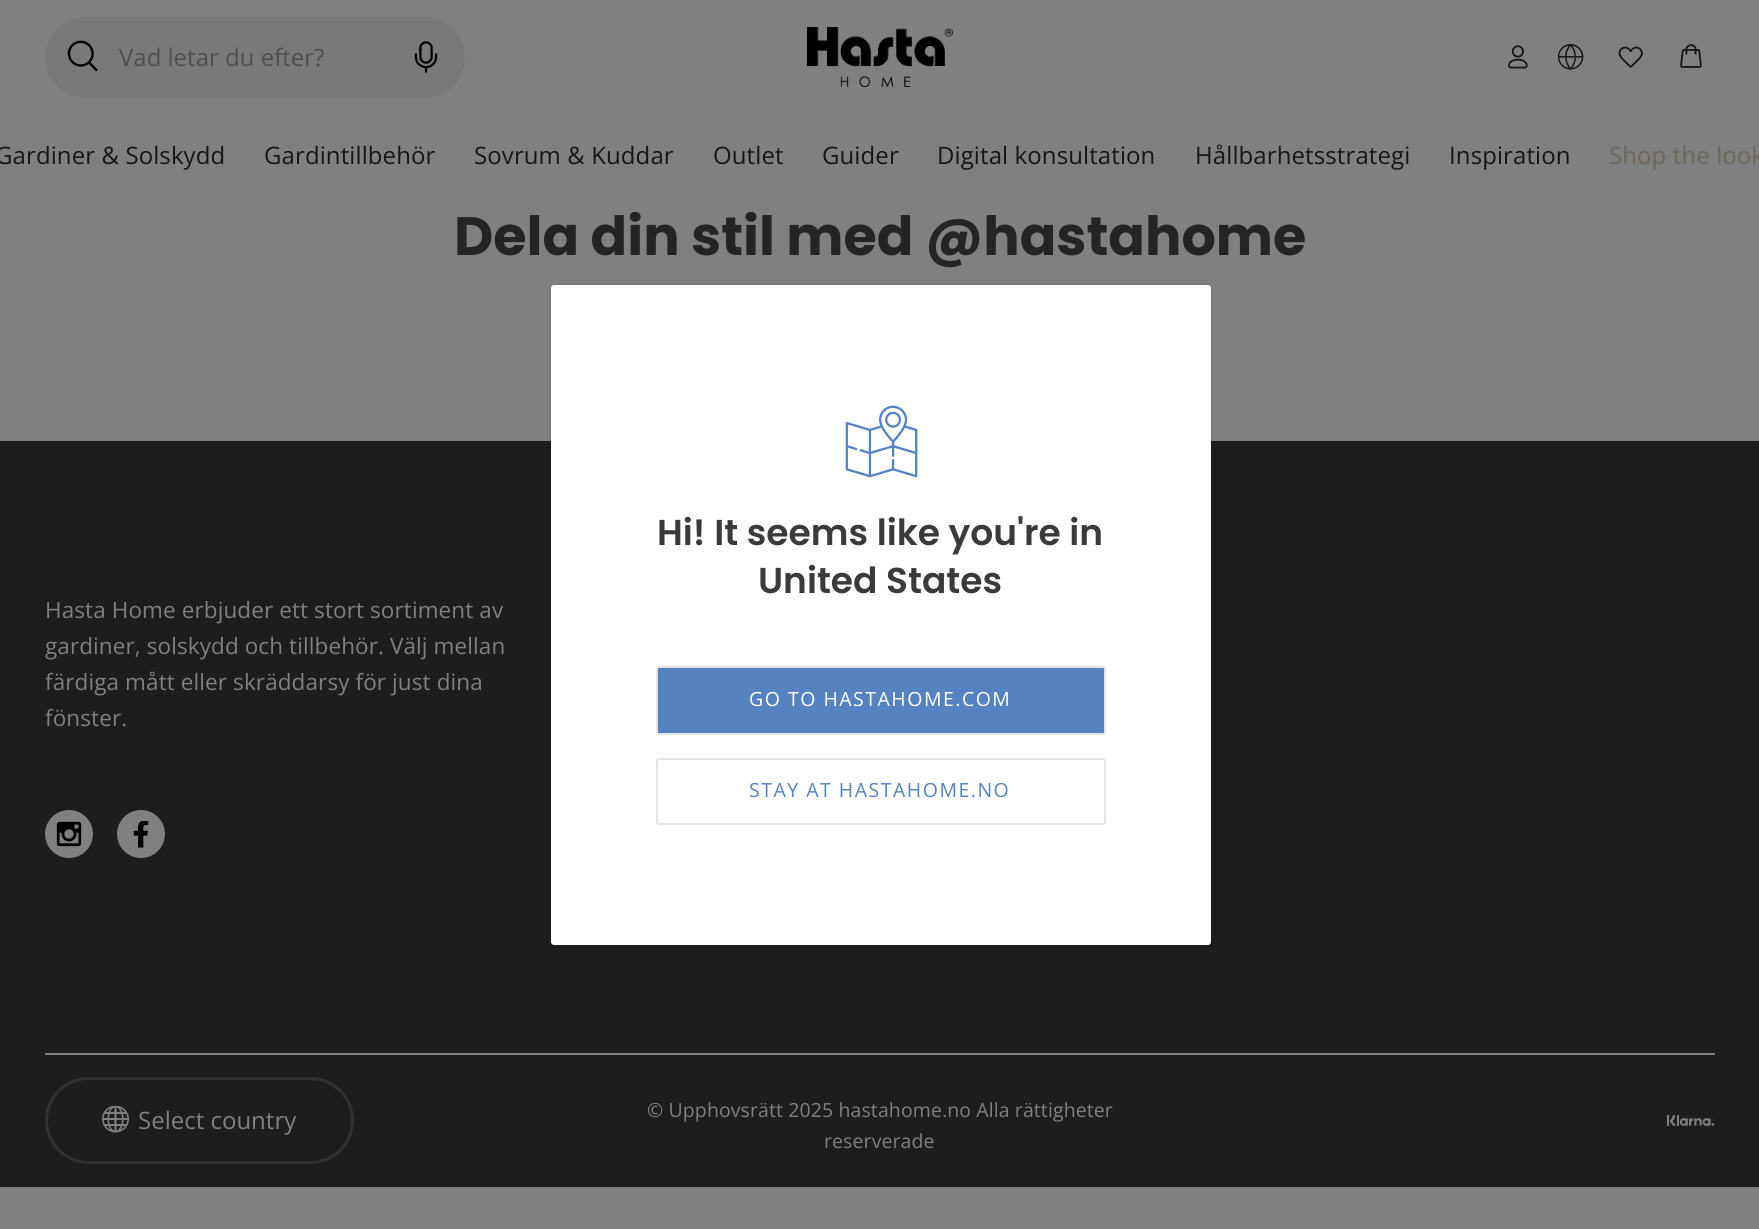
import math
import cairo

surface = cairo.ImageSurface(cairo.FORMAT_RGB24, 1759, 1229)
ctx = cairo.Context(surface)
options = cairo.FontOptions()
options.set_hint_metrics(cairo.HINT_METRICS_OFF)
options.set_hint_style(cairo.HINT_STYLE_NONE)
ctx.set_font_options(options)
ctx.set_miter_limit(4)


def spaced_text(x, y, s, letter, word):
    ctx.move_to(x, y)
    for ch in s:
        ctx.show_text(ch)
        ctx.rel_move_to(letter + word * (ch == ' '), 0)


def round_rect(x, y, w, h, r):
    ctx.new_sub_path()
    for i, (u, v) in enumerate([(x + w - r, y + h - r), (x + r, y + h - r), (x + r, y + r), (x + w - r, y + r)]):
        ctx.arc(u, v, r, i * math.pi / 2, (i + 1) * math.pi / 2)
    ctx.close_path()


def shadow(x, y, w, h, r, blur, alpha):
    ctx.push_group_with_content(cairo.CONTENT_ALPHA)
    ctx.set_operator(cairo.OPERATOR_SOURCE)
    for i in range(15, -16, -2):
        e = blur * i / 6
        if min(w, h) + 2 * e > 0:
            ctx.set_source_rgba(0, 0, 0, alpha * math.erfc((i - 1) / 8.5) / 2)
            round_rect(x - e, y - e, w + 2 * e, h + 2 * e, max(0, min(r + e + blur * .6, min(w, h) / 2 + e)))
            ctx.fill()
    ctx.mask(ctx.pop_group())


def picture(path, x, y, w, h):
    ctx.save()
    ctx.set_source_surface(cairo.ImageSurface.create_from_png(path), x, y)
    ctx.rectangle(x, y, w, h)
    ctx.fill()
    ctx.restore()


ctx.set_source_rgb(0.502, 0.502, 0.502)
ctx.paint()
ctx.select_font_face("Poppins", cairo.FONT_SLANT_NORMAL, cairo.FONT_WEIGHT_BOLD)
ctx.set_font_size(54)
ctx.set_source_rgb(0.141, 0.141, 0.145)
ctx.move_to(454, 255)
ctx.show_text("Dela din stil med @hastahome")
ctx.set_source_rgb(0.502, 0.502, 0.502)
ctx.rectangle(633, 211, 119, 1)
ctx.fill()
ctx.set_source_rgb(0.475, 0.475, 0.475)
round_rect(45, 17, 420, 81, 40.5)
ctx.fill()
picture("img1.png", 67, 40, 31, 32)
ctx.select_font_face("Open Sans")
ctx.set_font_size(24)
ctx.set_source_rgb(0.306, 0.306, 0.306)
ctx.move_to(119, 66)
ctx.show_text("Vad letar du efter?")
picture("img2.png", 414, 41, 24, 32)
picture("img3.png", 807, 27, 146, 60)
picture("img4.png", 1508, 45, 20, 24)
picture("img5.png", 1557, 44, 27, 26)
picture("img6.png", 1618, 46, 25, 22)
picture("img7.png", 1680, 44, 22, 24)
ctx.set_source_rgb(0.086, 0.086, 0.09)
spaced_text(-5, 164, "Gardiner & Solskydd", 0.1, 0)
spaced_text(264, 164, "Gardintillbehör", 0.1, 0)
spaced_text(474, 164, "Sovrum & Kuddar", 0.1, 0)
spaced_text(713, 164, "Outlet", 0.1, 0)
spaced_text(822, 164, "Guider", 0.1, 0)
spaced_text(937, 164, "Digital konsultation", 0.1, 0)
spaced_text(1195, 164, "Hållbarhetsstrategi", 0.1, 0)
spaced_text(1449, 164, "Inspiration", 0.1, 0)
ctx.set_source_rgb(0.424, 0.4, 0.365)
spaced_text(1609, 164, "Shop the look", 0.1, 0)
ctx.set_source_rgb(0.114, 0.114, 0.118)
ctx.rectangle(0, 441, 1759, 746)
ctx.fill()
ctx.set_source_rgb(0, 0, 0)
shadow(551, 285, 660, 660, 3, 1.5, 0.2)
ctx.set_source_rgb(1, 1, 1)
round_rect(551, 285, 660, 660, 3)
ctx.fill()
picture("img8.png", 845, 405, 73, 73)
ctx.select_font_face("Poppins SemiBold")
ctx.set_font_size(36)
ctx.set_source_rgb(0.227, 0.227, 0.227)
ctx.move_to(657, 545)
ctx.show_text("Hi! It seems like you're in")
ctx.move_to(758, 593)
ctx.show_text("United States")
ctx.set_source_rgb(0.329, 0.514, 0.749)
round_rect(657, 667, 448, 67, 2)
ctx.fill_preserve()
ctx.set_source_rgb(0.898, 0.898, 0.898)
ctx.stroke()
ctx.select_font_face("Open Sans")
ctx.set_font_size(19.5)
ctx.set_source_rgb(1, 1, 1)
spaced_text(749, 706, "GO TO HASTAHOME.COM", 1.5, 0)
round_rect(657, 759, 448, 65, 2)
ctx.set_source_rgb(0.898, 0.898, 0.898)
ctx.stroke()
ctx.set_source_rgb(0.329, 0.514, 0.749)
spaced_text(749, 797, "STAY AT HASTAHOME.NO", 1.5, 0)
ctx.set_font_size(22.5)
ctx.set_source_rgb(0.502, 0.502, 0.502)
spaced_text(45, 618, "Hasta Home erbjuder ett stort sortiment av", 0.1, 0)
spaced_text(45, 654, "gardiner, solskydd och tillbehör. Välj mellan", 0.1, 0)
spaced_text(45, 690, "färdiga mått eller skräddarsy för just dina", 0.1, 0)
spaced_text(45, 726, "fönster.", 0.1, 0)
ctx.new_path()
ctx.arc(69, 834, 24, 0, 2 * math.pi)
ctx.fill()
picture("img9.png", 56, 821, 26, 26)
ctx.arc(141, 834, 24, 0, 2 * math.pi)
ctx.fill()
picture("img10.png", 133, 821, 16, 27)
ctx.rectangle(45, 1053, 1670, 2)
ctx.fill()
round_rect(46.5, 1078.5, 306, 84, 42)
ctx.set_source_rgb(0.192, 0.192, 0.196)
ctx.set_line_width(3)
ctx.stroke()
picture("img11.png", 102, 1106, 27, 27)
ctx.set_font_size(24)
ctx.set_source_rgb(0.502, 0.502, 0.502)
ctx.move_to(138, 1129)
ctx.show_text("Select country")
ctx.set_font_size(19.5)
spaced_text(647, 1117, "© Upphovsrätt 2025 hastahome.no Alla rättigheter", 0.1, 0)
spaced_text(824, 1148, "reserverade", 0.1, 0)
picture("img12.png", 1667, 1115, 48, 11)
surface.write_to_png("page.png")
